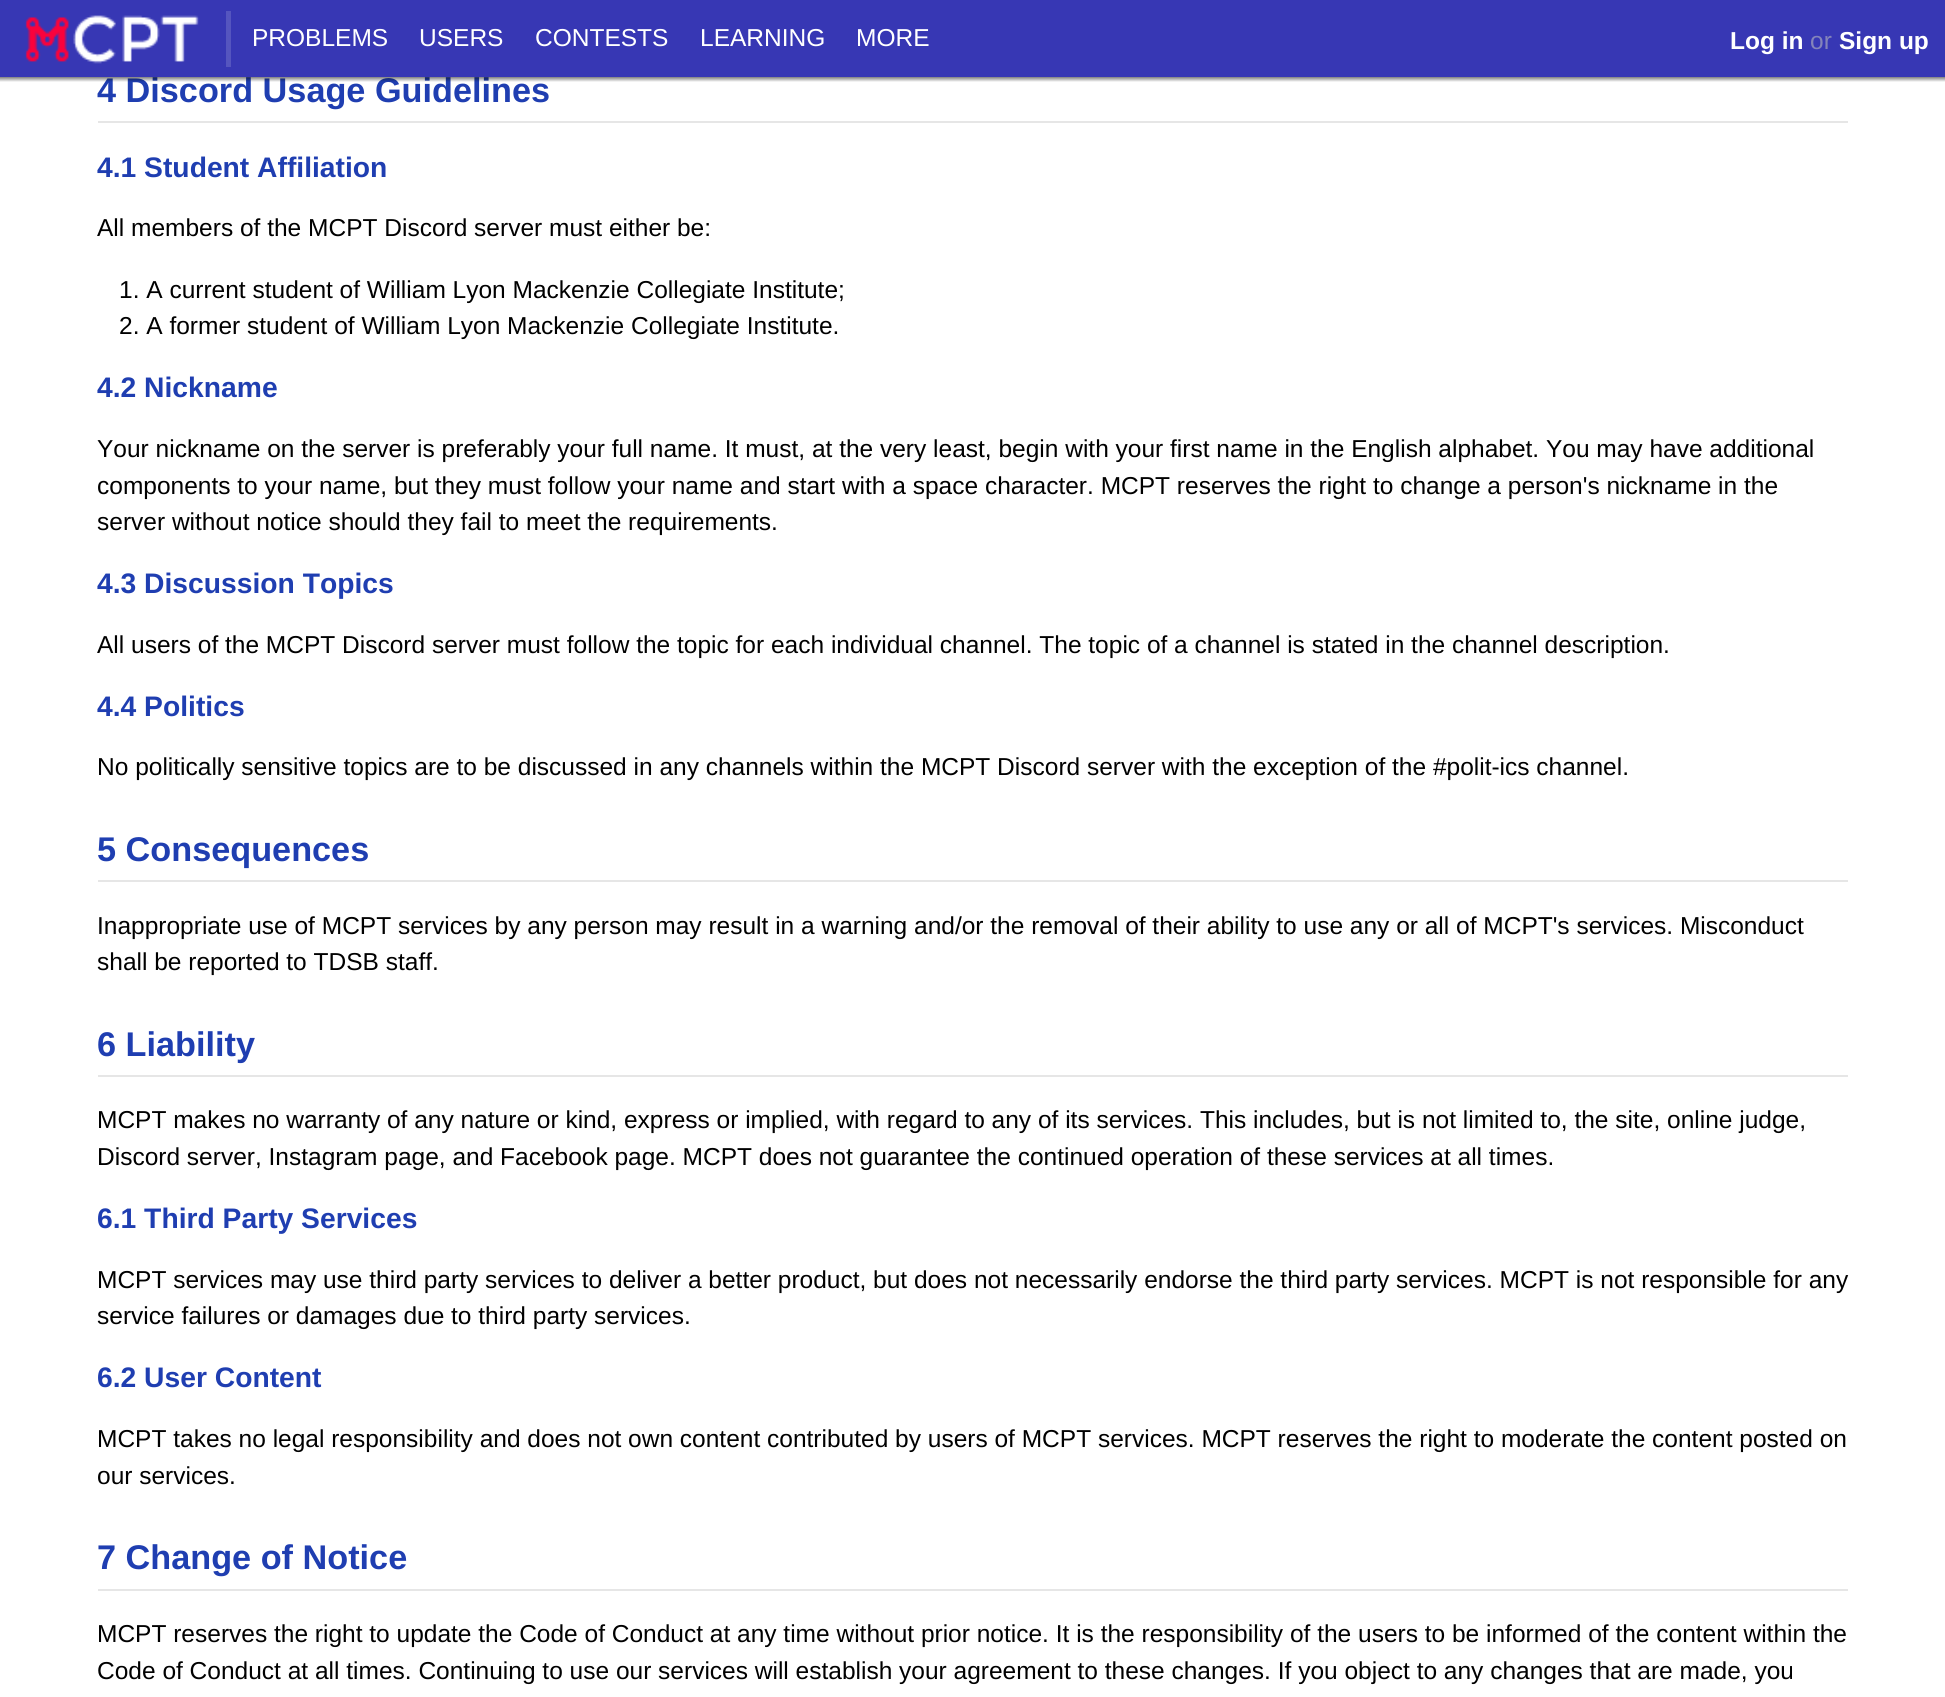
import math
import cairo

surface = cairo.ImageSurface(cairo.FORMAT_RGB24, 1945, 1697)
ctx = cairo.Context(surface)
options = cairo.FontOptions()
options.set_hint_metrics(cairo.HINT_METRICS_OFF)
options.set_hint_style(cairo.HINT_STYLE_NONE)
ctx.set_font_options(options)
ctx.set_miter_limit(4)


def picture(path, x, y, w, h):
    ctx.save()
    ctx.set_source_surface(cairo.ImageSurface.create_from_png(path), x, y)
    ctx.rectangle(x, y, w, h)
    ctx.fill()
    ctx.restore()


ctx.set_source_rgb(1, 1, 1)
ctx.paint()
ctx.set_source_rgb(0.216, 0.216, 0.706)
ctx.rectangle(0, 0, 1945, 77)
ctx.fill()
picture("img1.png", 25, 15, 174, 49)
ctx.set_source_rgb(0.333, 0.333, 0.749)
ctx.rectangle(226, 11, 5, 56)
ctx.fill()
ctx.select_font_face("Liberation Sans")
ctx.set_font_size(24.5)
ctx.set_source_rgb(1, 1, 1)
ctx.move_to(252, 46)
ctx.show_text("PROBLEMS")
ctx.move_to(419, 46)
ctx.show_text("USERS")
ctx.move_to(535, 46)
ctx.show_text("CONTESTS")
ctx.move_to(700, 46)
ctx.show_text("LEARNING")
ctx.move_to(856, 46)
ctx.show_text("MORE")
ctx.select_font_face("Liberation Sans", cairo.FONT_SLANT_NORMAL, cairo.FONT_WEIGHT_BOLD)
ctx.move_to(1730, 49)
ctx.show_text("Log in")
ctx.select_font_face("Liberation Sans")
ctx.set_source_rgb(0.518, 0.518, 0.729)
ctx.move_to(1810, 49)
ctx.show_text("or")
ctx.select_font_face("Liberation Sans", cairo.FONT_SLANT_NORMAL, cairo.FONT_WEIGHT_BOLD)
ctx.set_source_rgb(1, 1, 1)
ctx.move_to(1839, 49)
ctx.show_text("Sign up")
ctx.set_font_size(34.25)
ctx.set_source_rgb(0.122, 0.243, 0.694)
ctx.move_to(97, 102)
ctx.show_text("4 Discord Usage Guidelines")
gradient = cairo.LinearGradient(973, 77, 973, 82)
gradient.add_color_stop_rgba(0, 0, 0, 0, 0.5)
gradient.add_color_stop_rgba(1, 0, 0, 0, 0)
ctx.set_source(gradient)
ctx.rectangle(0, 77, 1945, 5)
ctx.fill()
ctx.set_source_rgb(0.902, 0.902, 0.902)
ctx.rectangle(98, 121, 1750, 2)
ctx.fill()
ctx.set_font_size(28.25)
ctx.set_source_rgb(0.122, 0.243, 0.694)
ctx.move_to(97, 177)
ctx.show_text("4.1 Student Affiliation")
ctx.select_font_face("Liberation Sans")
ctx.set_font_size(24.5)
ctx.set_source_rgb(0, 0, 0)
ctx.move_to(97, 236)
ctx.show_text("All members of the MCPT Discord server must either be:")
ctx.move_to(119, 298)
ctx.show_text("1. A current student of William Lyon Mackenzie Collegiate Institute;")
ctx.move_to(119, 334)
ctx.show_text("2. A former student of William Lyon Mackenzie Collegiate Institute.")
ctx.select_font_face("Liberation Sans", cairo.FONT_SLANT_NORMAL, cairo.FONT_WEIGHT_BOLD)
ctx.set_font_size(28.25)
ctx.set_source_rgb(0.122, 0.243, 0.694)
ctx.move_to(97, 397)
ctx.show_text("4.2 Nickname")
ctx.select_font_face("Liberation Sans")
ctx.set_font_size(24.5)
ctx.set_source_rgb(0, 0, 0)
ctx.move_to(97, 457)
ctx.show_text("Your nickname on the server is preferably your full name. It must, at the very least, begin with your first name in the English alphabet. You may have additional")
ctx.move_to(97, 494)
ctx.show_text("components to your name, but they must follow your name and start with a space character. MCPT reserves the right to change a person's nickname in the")
ctx.move_to(97, 530)
ctx.show_text("server without notice should they fail to meet the requirements.")
ctx.select_font_face("Liberation Sans", cairo.FONT_SLANT_NORMAL, cairo.FONT_WEIGHT_BOLD)
ctx.set_font_size(28.25)
ctx.set_source_rgb(0.122, 0.243, 0.694)
ctx.move_to(97, 593)
ctx.show_text("4.3 Discussion Topics")
ctx.select_font_face("Liberation Sans")
ctx.set_font_size(24.5)
ctx.set_source_rgb(0, 0, 0)
ctx.move_to(97, 653)
ctx.show_text("All users of the MCPT Discord server must follow the topic for each individual channel. The topic of a channel is stated in the channel description.")
ctx.select_font_face("Liberation Sans", cairo.FONT_SLANT_NORMAL, cairo.FONT_WEIGHT_BOLD)
ctx.set_font_size(28.25)
ctx.set_source_rgb(0.122, 0.243, 0.694)
ctx.move_to(97, 716)
ctx.show_text("4.4 Politics")
ctx.select_font_face("Liberation Sans")
ctx.set_font_size(24.5)
ctx.set_source_rgb(0, 0, 0)
ctx.move_to(97, 775)
ctx.show_text("No politically sensitive topics are to be discussed in any channels within the MCPT Discord server with the exception of the #polit-ics channel.")
ctx.set_source_rgb(0.902, 0.902, 0.902)
ctx.rectangle(98, 880, 1750, 2)
ctx.fill()
ctx.select_font_face("Liberation Sans", cairo.FONT_SLANT_NORMAL, cairo.FONT_WEIGHT_BOLD)
ctx.set_font_size(34.25)
ctx.set_source_rgb(0.122, 0.243, 0.694)
ctx.move_to(97, 861)
ctx.show_text("5 Consequences")
ctx.select_font_face("Liberation Sans")
ctx.set_font_size(24.5)
ctx.set_source_rgb(0, 0, 0)
ctx.move_to(97, 934)
ctx.show_text("Inappropriate use of MCPT services by any person may result in a warning and/or the removal of their ability to use any or all of MCPT's services. Misconduct")
ctx.move_to(97, 970)
ctx.show_text("shall be reported to TDSB staff.")
ctx.set_source_rgb(0.902, 0.902, 0.902)
ctx.rectangle(98, 1075, 1750, 2)
ctx.fill()
ctx.select_font_face("Liberation Sans", cairo.FONT_SLANT_NORMAL, cairo.FONT_WEIGHT_BOLD)
ctx.set_font_size(34.25)
ctx.set_source_rgb(0.122, 0.243, 0.694)
ctx.move_to(97, 1056)
ctx.show_text("6 Liability")
ctx.select_font_face("Liberation Sans")
ctx.set_font_size(24.5)
ctx.set_source_rgb(0, 0, 0)
ctx.move_to(97, 1128)
ctx.show_text("MCPT makes no warranty of any nature or kind, express or implied, with regard to any of its services. This includes, but is not limited to, the site, online judge,")
ctx.move_to(97, 1165)
ctx.show_text("Discord server, Instagram page, and Facebook page. MCPT does not guarantee the continued operation of these services at all times.")
ctx.select_font_face("Liberation Sans", cairo.FONT_SLANT_NORMAL, cairo.FONT_WEIGHT_BOLD)
ctx.set_font_size(28.25)
ctx.set_source_rgb(0.122, 0.243, 0.694)
ctx.move_to(97, 1228)
ctx.show_text("6.1 Third Party Services")
ctx.select_font_face("Liberation Sans")
ctx.set_font_size(24.5)
ctx.set_source_rgb(0, 0, 0)
ctx.move_to(97, 1288)
ctx.show_text("MCPT services may use third party services to deliver a better product, but does not necessarily endorse the third party services. MCPT is not responsible for any")
ctx.move_to(97, 1324)
ctx.show_text("service failures or damages due to third party services.")
ctx.select_font_face("Liberation Sans", cairo.FONT_SLANT_NORMAL, cairo.FONT_WEIGHT_BOLD)
ctx.set_font_size(28.25)
ctx.set_source_rgb(0.122, 0.243, 0.694)
ctx.move_to(97, 1387)
ctx.show_text("6.2 User Content")
ctx.select_font_face("Liberation Sans")
ctx.set_font_size(24.5)
ctx.set_source_rgb(0, 0, 0)
ctx.move_to(97, 1447)
ctx.show_text("MCPT takes no legal responsibility and does not own content contributed by users of MCPT services. MCPT reserves the right to moderate the content posted on")
ctx.move_to(97, 1484)
ctx.show_text("our services.")
ctx.set_source_rgb(0.902, 0.902, 0.902)
ctx.rectangle(98, 1589, 1750, 2)
ctx.fill()
ctx.select_font_face("Liberation Sans", cairo.FONT_SLANT_NORMAL, cairo.FONT_WEIGHT_BOLD)
ctx.set_font_size(34.25)
ctx.set_source_rgb(0.122, 0.243, 0.694)
ctx.move_to(97, 1569)
ctx.show_text("7 Change of Notice")
ctx.select_font_face("Liberation Sans")
ctx.set_font_size(24.5)
ctx.set_source_rgb(0, 0, 0)
ctx.move_to(97, 1642)
ctx.show_text("MCPT reserves the right to update the Code of Conduct at any time without prior notice. It is the responsibility of the users to be informed of the content within the")
ctx.move_to(97, 1679)
ctx.show_text("Code of Conduct at all times. Continuing to use our services will establish your agreement to these changes. If you object to any changes that are made, you")
surface.write_to_png("page.png")
